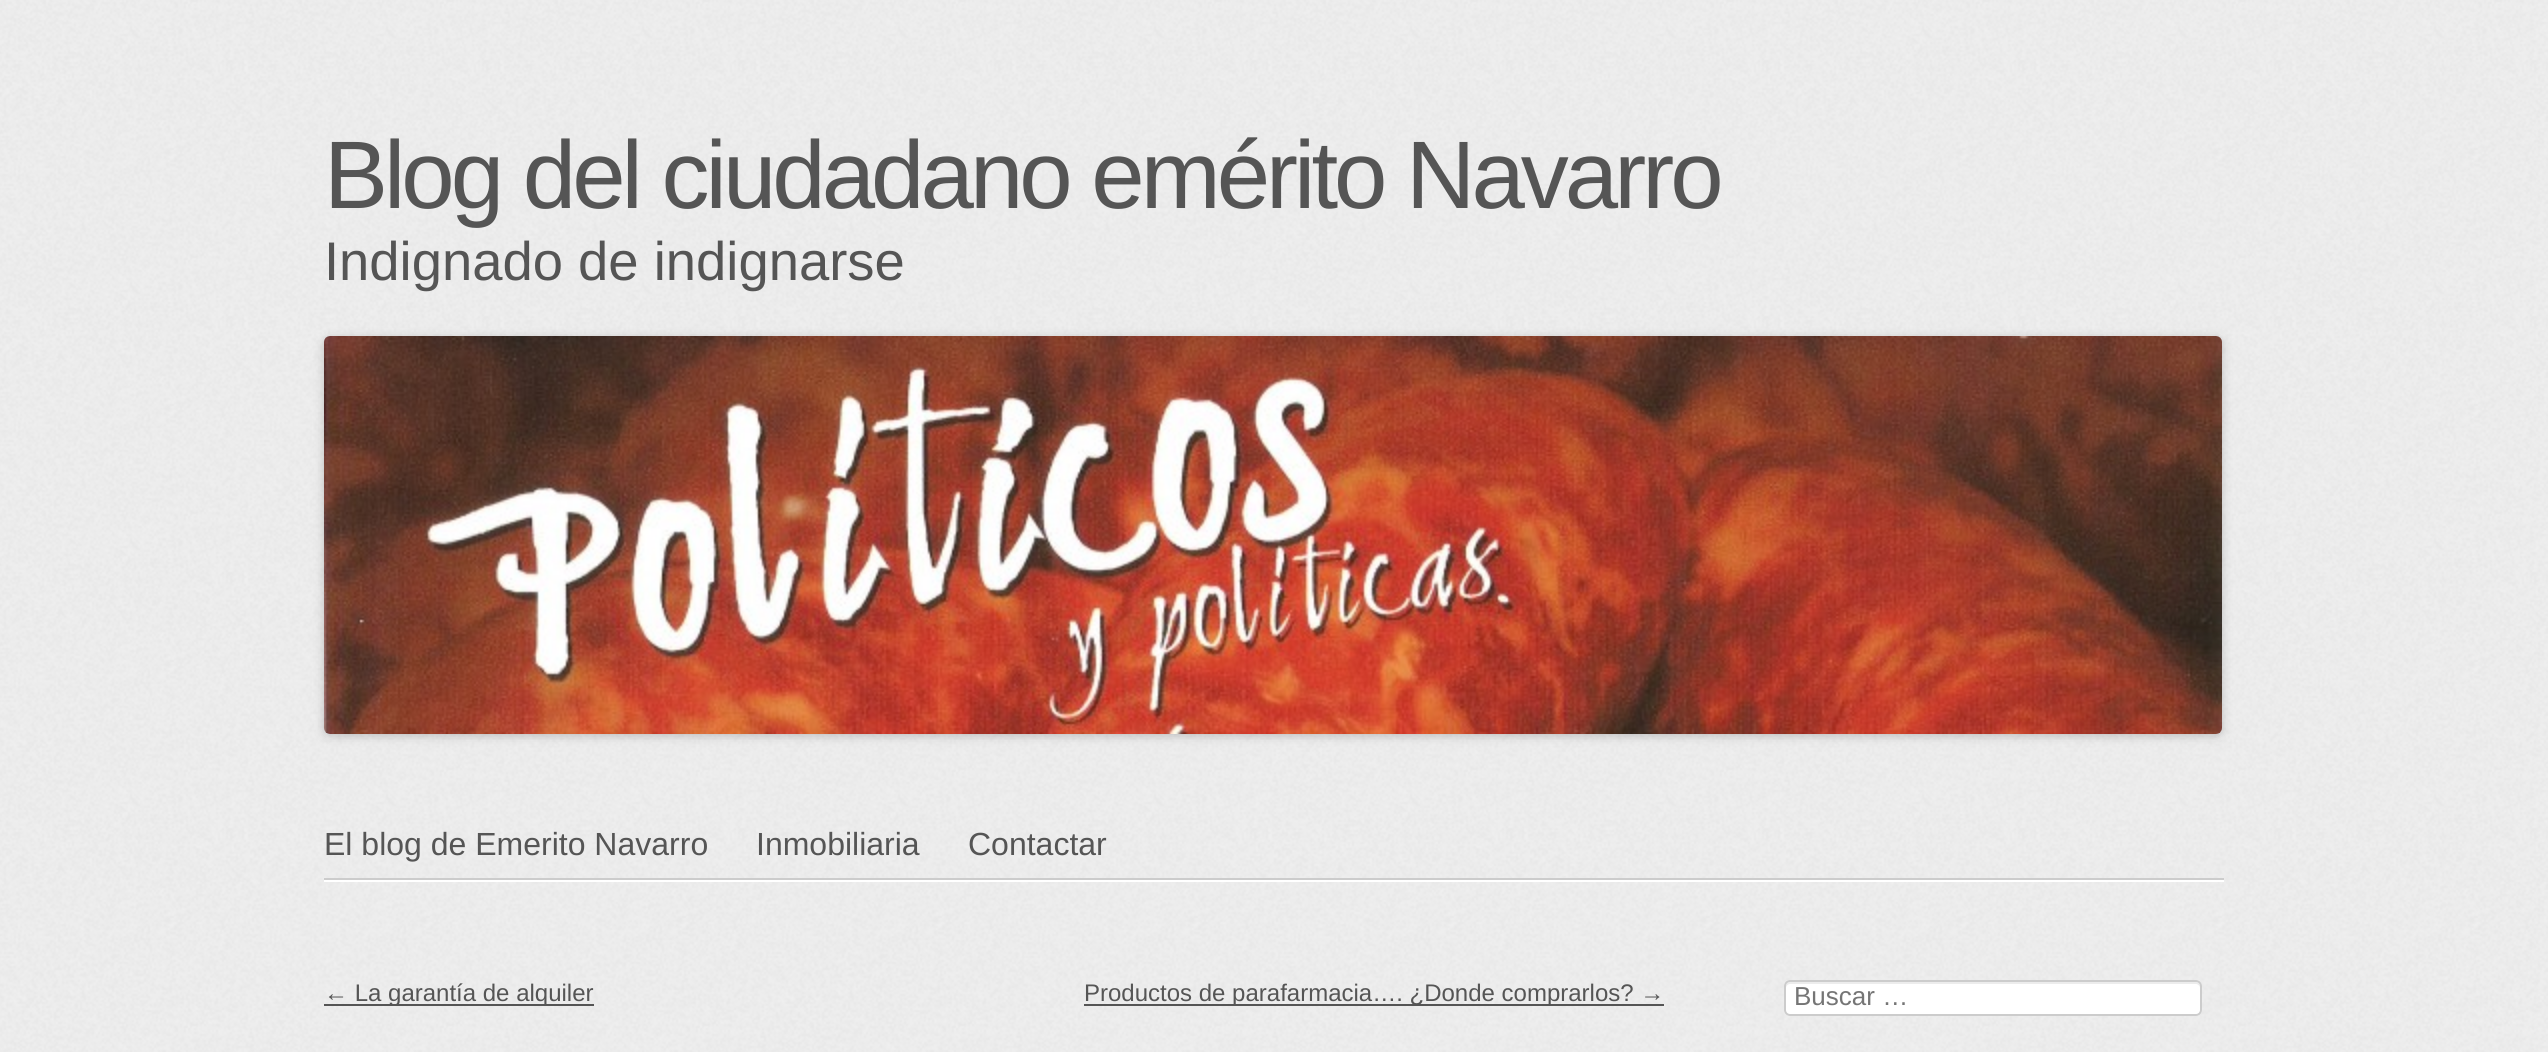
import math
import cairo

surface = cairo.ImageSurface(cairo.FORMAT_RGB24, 2548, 1052)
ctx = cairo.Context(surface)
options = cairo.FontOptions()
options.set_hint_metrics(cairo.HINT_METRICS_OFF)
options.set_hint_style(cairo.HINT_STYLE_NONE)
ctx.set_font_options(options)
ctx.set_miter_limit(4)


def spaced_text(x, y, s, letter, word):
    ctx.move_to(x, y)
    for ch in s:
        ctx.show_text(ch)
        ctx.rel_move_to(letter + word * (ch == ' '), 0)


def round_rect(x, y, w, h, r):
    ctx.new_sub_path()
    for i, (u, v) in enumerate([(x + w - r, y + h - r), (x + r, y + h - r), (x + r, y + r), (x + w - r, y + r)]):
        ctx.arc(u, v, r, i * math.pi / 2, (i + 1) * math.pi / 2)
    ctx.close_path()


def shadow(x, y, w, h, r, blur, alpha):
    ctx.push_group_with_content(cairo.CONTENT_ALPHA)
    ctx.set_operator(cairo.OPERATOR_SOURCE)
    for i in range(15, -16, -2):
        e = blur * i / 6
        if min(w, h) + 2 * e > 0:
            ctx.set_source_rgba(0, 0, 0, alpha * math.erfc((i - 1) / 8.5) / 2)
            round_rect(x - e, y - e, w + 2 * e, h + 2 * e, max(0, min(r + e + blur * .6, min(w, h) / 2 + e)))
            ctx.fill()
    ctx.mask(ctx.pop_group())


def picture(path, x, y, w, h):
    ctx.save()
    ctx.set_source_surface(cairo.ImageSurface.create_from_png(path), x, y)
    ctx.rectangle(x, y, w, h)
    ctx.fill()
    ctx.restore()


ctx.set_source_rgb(0.941, 0.941, 0.941)
ctx.paint()
picture("img1.png", 0, 0, 2548, 1052)
ctx.select_font_face("Liberation Sans")
ctx.set_font_size(96)
ctx.set_source_rgb(0.333, 0.333, 0.333)
spaced_text(324, 208, "Blog del ciudadano emérito Navarro", -4, 0)
ctx.set_font_size(54.4)
ctx.move_to(324, 280)
ctx.show_text("Indignado de indignarse")
ctx.set_source_rgb(0, 0, 0)
shadow(324, 338, 1898, 398, 6, 5, 0.2)
picture("img2.png", 324, 336, 1898, 398)
ctx.set_source_rgb(1, 1, 1)
ctx.rectangle(324, 880, 1900, 2)
ctx.fill()
ctx.set_source_rgb(0.8, 0.8, 0.8)
ctx.rectangle(324, 878, 1900, 2)
ctx.fill()
ctx.set_font_size(32)
ctx.set_source_rgb(0.333, 0.333, 0.333)
ctx.move_to(324, 855)
ctx.show_text("El blog de Emerito Navarro")
ctx.move_to(756, 855)
ctx.show_text("Inmobiliaria")
ctx.move_to(968, 855)
ctx.show_text("Contactar")
ctx.rectangle(324, 1004, 270, 2)
ctx.fill()
ctx.set_font_size(24)
ctx.move_to(324, 1001)
ctx.show_text("← La garantía de alquiler")
ctx.rectangle(1084, 1004, 580, 2)
ctx.fill()
ctx.move_to(1084, 1001)
ctx.show_text("Productos de parafarmacia…. ¿Donde comprarlos? →")
ctx.set_source_rgb(1, 1, 1)
round_rect(1784, 980, 418, 36, 6)
ctx.fill()
ctx.set_source_rgb(0.925, 0.925, 0.925)
ctx.new_path()
ctx.move_to(1790, 984)
ctx.line_to(2196, 984)
ctx.curve_to(2198, 984, 2200, 986, 2200, 988)
ctx.curve_to(2200, 985, 2200, 982, 2196, 982)
ctx.line_to(1790, 982)
ctx.curve_to(1786, 982, 1786, 985, 1786, 988)
ctx.curve_to(1786, 986, 1788, 984, 1790, 984)
ctx.close_path()
ctx.fill()
round_rect(1785, 981, 416, 34, 5)
ctx.set_source_rgb(0.8, 0.8, 0.8)
ctx.stroke()
ctx.set_font_size(26)
ctx.set_source_rgb(0.459, 0.459, 0.459)
ctx.move_to(1794, 1005)
ctx.show_text("Buscar …")
surface.write_to_png("page.png")
